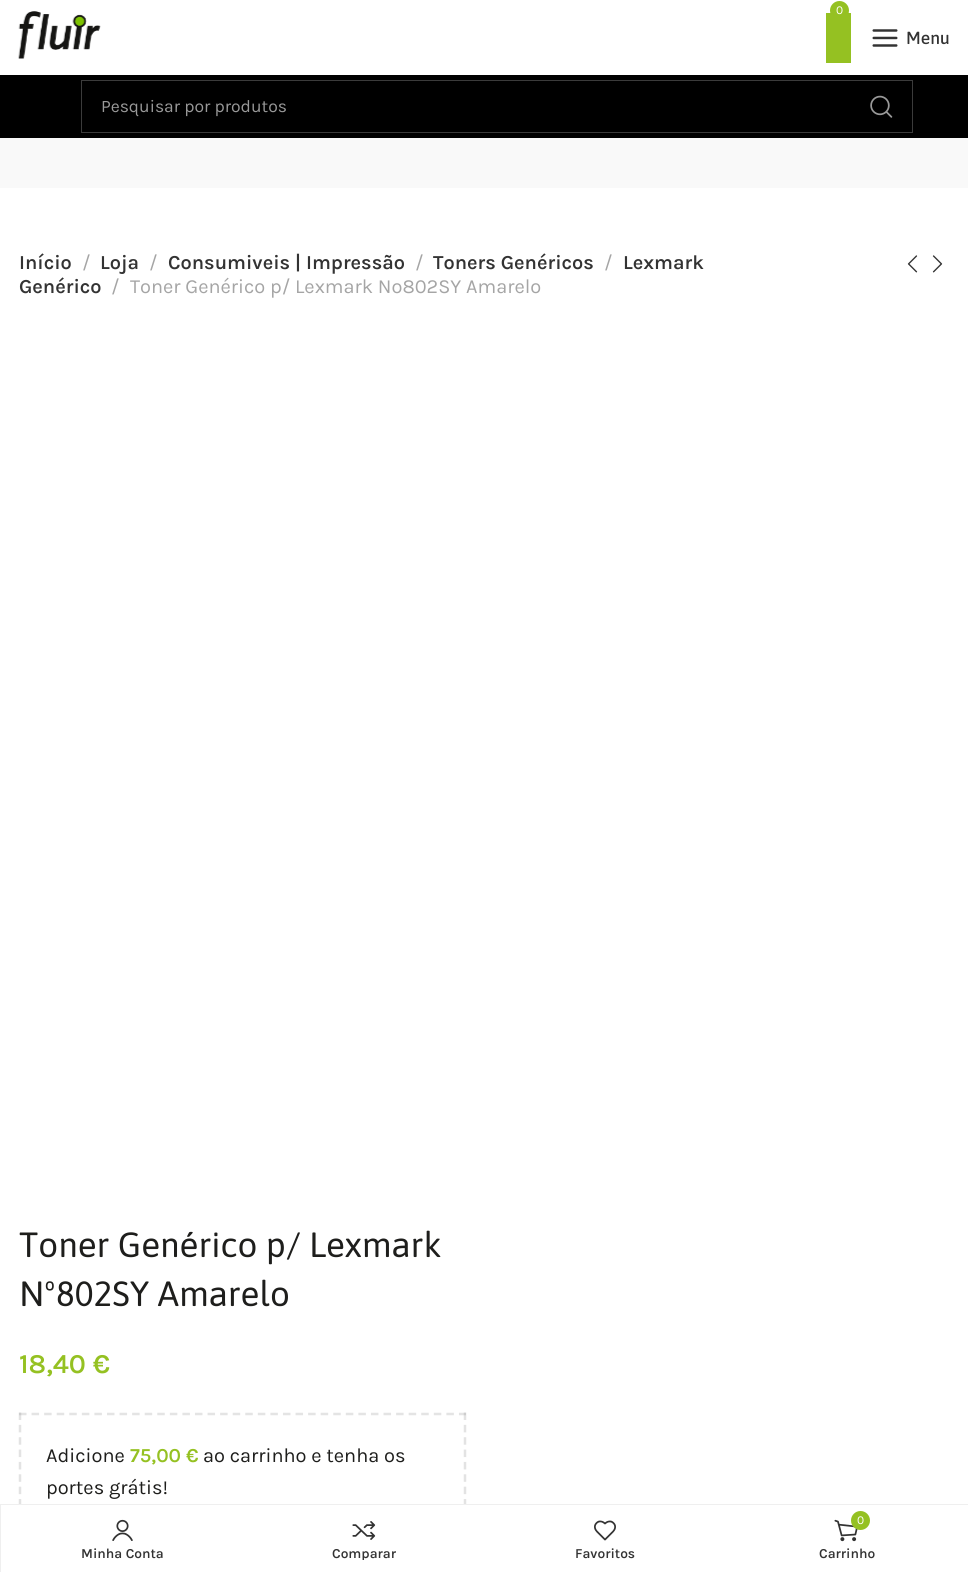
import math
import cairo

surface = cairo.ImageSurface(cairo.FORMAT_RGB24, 968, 1572)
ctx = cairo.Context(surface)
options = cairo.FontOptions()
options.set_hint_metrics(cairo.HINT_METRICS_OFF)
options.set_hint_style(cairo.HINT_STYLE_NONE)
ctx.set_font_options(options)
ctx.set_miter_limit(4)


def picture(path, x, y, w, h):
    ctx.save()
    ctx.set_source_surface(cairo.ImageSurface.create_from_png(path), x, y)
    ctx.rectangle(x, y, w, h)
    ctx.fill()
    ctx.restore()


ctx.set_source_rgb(1, 1, 1)
ctx.paint()
picture("img1.png", 18, 11, 83, 48)
ctx.set_source_rgb(0.584, 0.757, 0.133)
ctx.rectangle(826, 13, 25, 50)
ctx.fill()
ctx.arc(839.5, 10.5, 9.5, 0, 2 * math.pi)
ctx.fill()
ctx.select_font_face("Karla")
ctx.set_font_size(12)
ctx.set_source_rgb(1, 1, 1)
ctx.move_to(836, 14)
ctx.show_text("0")
picture("img2.png", 872, 29, 26, 18)
ctx.select_font_face("Asap Medium")
ctx.set_font_size(17.5)
ctx.set_source_rgb(0.2, 0.2, 0.2)
ctx.move_to(906, 44)
ctx.show_text("Menu")
ctx.set_source_rgb(0, 0, 0)
ctx.rectangle(0, 75, 968, 63)
ctx.fill()
ctx.rectangle(81.5, 80.5, 831, 52)
ctx.set_source_rgb(0.231, 0.231, 0.231)
ctx.set_line_width(1)
ctx.stroke()
ctx.select_font_face("Karla")
ctx.set_source_rgb(0.6, 0.6, 0.6)
ctx.move_to(101, 112)
ctx.show_text("Pesquisar por produtos")
picture("img3.png", 870, 95, 23, 23)
ctx.set_source_rgb(0.976, 0.976, 0.976)
ctx.rectangle(0, 138, 968, 50)
ctx.fill()
ctx.select_font_face("Karla SemiBold")
ctx.set_font_size(20)
ctx.set_source_rgb(0.2, 0.2, 0.2)
ctx.move_to(19, 269)
ctx.show_text("Início")
ctx.select_font_face("Karla")
ctx.set_source_rgb(0.647, 0.647, 0.647)
ctx.move_to(82, 269)
ctx.show_text("/")
ctx.select_font_face("Karla SemiBold")
ctx.set_source_rgb(0.2, 0.2, 0.2)
ctx.move_to(100, 269)
ctx.show_text("Loja")
ctx.select_font_face("Karla")
ctx.set_source_rgb(0.647, 0.647, 0.647)
ctx.move_to(149, 269)
ctx.show_text("/")
ctx.select_font_face("Karla SemiBold")
ctx.set_source_rgb(0.2, 0.2, 0.2)
ctx.move_to(168, 269)
ctx.show_text("Consumiveis | Impressão")
ctx.select_font_face("Karla")
ctx.set_source_rgb(0.647, 0.647, 0.647)
ctx.move_to(415, 269)
ctx.show_text("/")
ctx.select_font_face("Karla SemiBold")
ctx.set_source_rgb(0.2, 0.2, 0.2)
ctx.move_to(433, 269)
ctx.show_text("Toners Genéricos")
ctx.select_font_face("Karla")
ctx.set_source_rgb(0.647, 0.647, 0.647)
ctx.move_to(604, 269)
ctx.show_text("/")
ctx.select_font_face("Karla SemiBold")
ctx.set_source_rgb(0.2, 0.2, 0.2)
ctx.move_to(623, 269)
ctx.show_text("Lexmark")
ctx.move_to(19, 293)
ctx.show_text("Genérico")
ctx.select_font_face("Karla")
ctx.set_source_rgb(0.647, 0.647, 0.647)
ctx.move_to(111, 293)
ctx.show_text("/")
ctx.move_to(130, 293)
ctx.show_text("Toner Genérico p/ Lexmark Nº802SY Amarelo")
picture("img4.png", 907, 255, 11, 18)
picture("img5.png", 932, 255, 11, 18)
ctx.select_font_face("Asap")
ctx.set_font_size(35)
ctx.set_source_rgb(0.118, 0.118, 0.11)
ctx.move_to(19, 1257)
ctx.show_text("Toner Genérico p/ Lexmark")
ctx.move_to(19, 1306)
ctx.show_text("Nº802SY Amarelo")
ctx.select_font_face("Karla SemiBold")
ctx.set_font_size(27.5)
ctx.set_source_rgb(0.584, 0.757, 0.133)
ctx.move_to(19, 1373)
ctx.show_text("18,40 €")
ctx.new_path()
ctx.move_to(19, 1414)
ctx.line_to(466, 1414)
ctx.set_source_rgb(0.894, 0.894, 0.894)
ctx.set_line_width(2.5)
ctx.set_dash([7.5, 5.07])
ctx.stroke()
ctx.new_path()
ctx.move_to(465, 1412.5)
ctx.line_to(465, 1531)
ctx.set_source_rgba(0.467, 0.467, 0.467, 0.2)
ctx.set_dash([7.5, 4.86])
ctx.stroke()
ctx.new_path()
ctx.move_to(20, 1412.5)
ctx.line_to(20, 1531)
ctx.stroke()
ctx.select_font_face("Karla")
ctx.set_font_size(20)
ctx.set_source_rgb(0.118, 0.118, 0.11)
ctx.move_to(46, 1462)
ctx.show_text("Adicione")
ctx.select_font_face("Karla SemiBold")
ctx.set_source_rgb(0.584, 0.757, 0.133)
ctx.move_to(130, 1462)
ctx.show_text("75,00 €")
ctx.select_font_face("Karla")
ctx.set_source_rgb(0.118, 0.118, 0.11)
ctx.move_to(203, 1462)
ctx.show_text("ao carrinho e tenha os")
ctx.move_to(46, 1494)
ctx.show_text("portes grátis!")
ctx.set_source_rgb(1, 1, 1)
ctx.rectangle(18, 1505, 449, 26)
ctx.fill()
ctx.rectangle(0.5, 1504.5, 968, 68)
ctx.set_source_rgb(0.937, 0.937, 0.937)
ctx.set_line_width(1)
ctx.set_dash([])
ctx.stroke()
picture("img6.png", 112, 1519, 21, 22)
ctx.select_font_face("Karla SemiBold")
ctx.set_font_size(13.75)
ctx.set_source_rgb(0.2, 0.2, 0.2)
ctx.move_to(81, 1558)
ctx.show_text("Minha Conta")
picture("img7.png", 352, 1521, 24, 19)
ctx.save()
ctx.rectangle(255, 1546, 218, 14)
ctx.clip()
ctx.move_to(332, 1558)
ctx.show_text("Comparar")
ctx.restore()
picture("img8.png", 594, 1520, 22, 21)
ctx.move_to(575, 1558)
ctx.show_text("Favoritos")
picture("img9.png", 834, 1519, 24, 23)
ctx.set_source_rgb(0.584, 0.757, 0.133)
ctx.arc(860.5, 1520.5, 9.5, 0, 2 * math.pi)
ctx.fill()
ctx.select_font_face("Karla")
ctx.set_font_size(12)
ctx.set_source_rgb(1, 1, 1)
ctx.move_to(857, 1524)
ctx.show_text("0")
ctx.select_font_face("Karla SemiBold")
ctx.set_font_size(13.75)
ctx.set_source_rgb(0.2, 0.2, 0.2)
ctx.move_to(819, 1558)
ctx.show_text("Carrinho")
surface.write_to_png("page.png")
